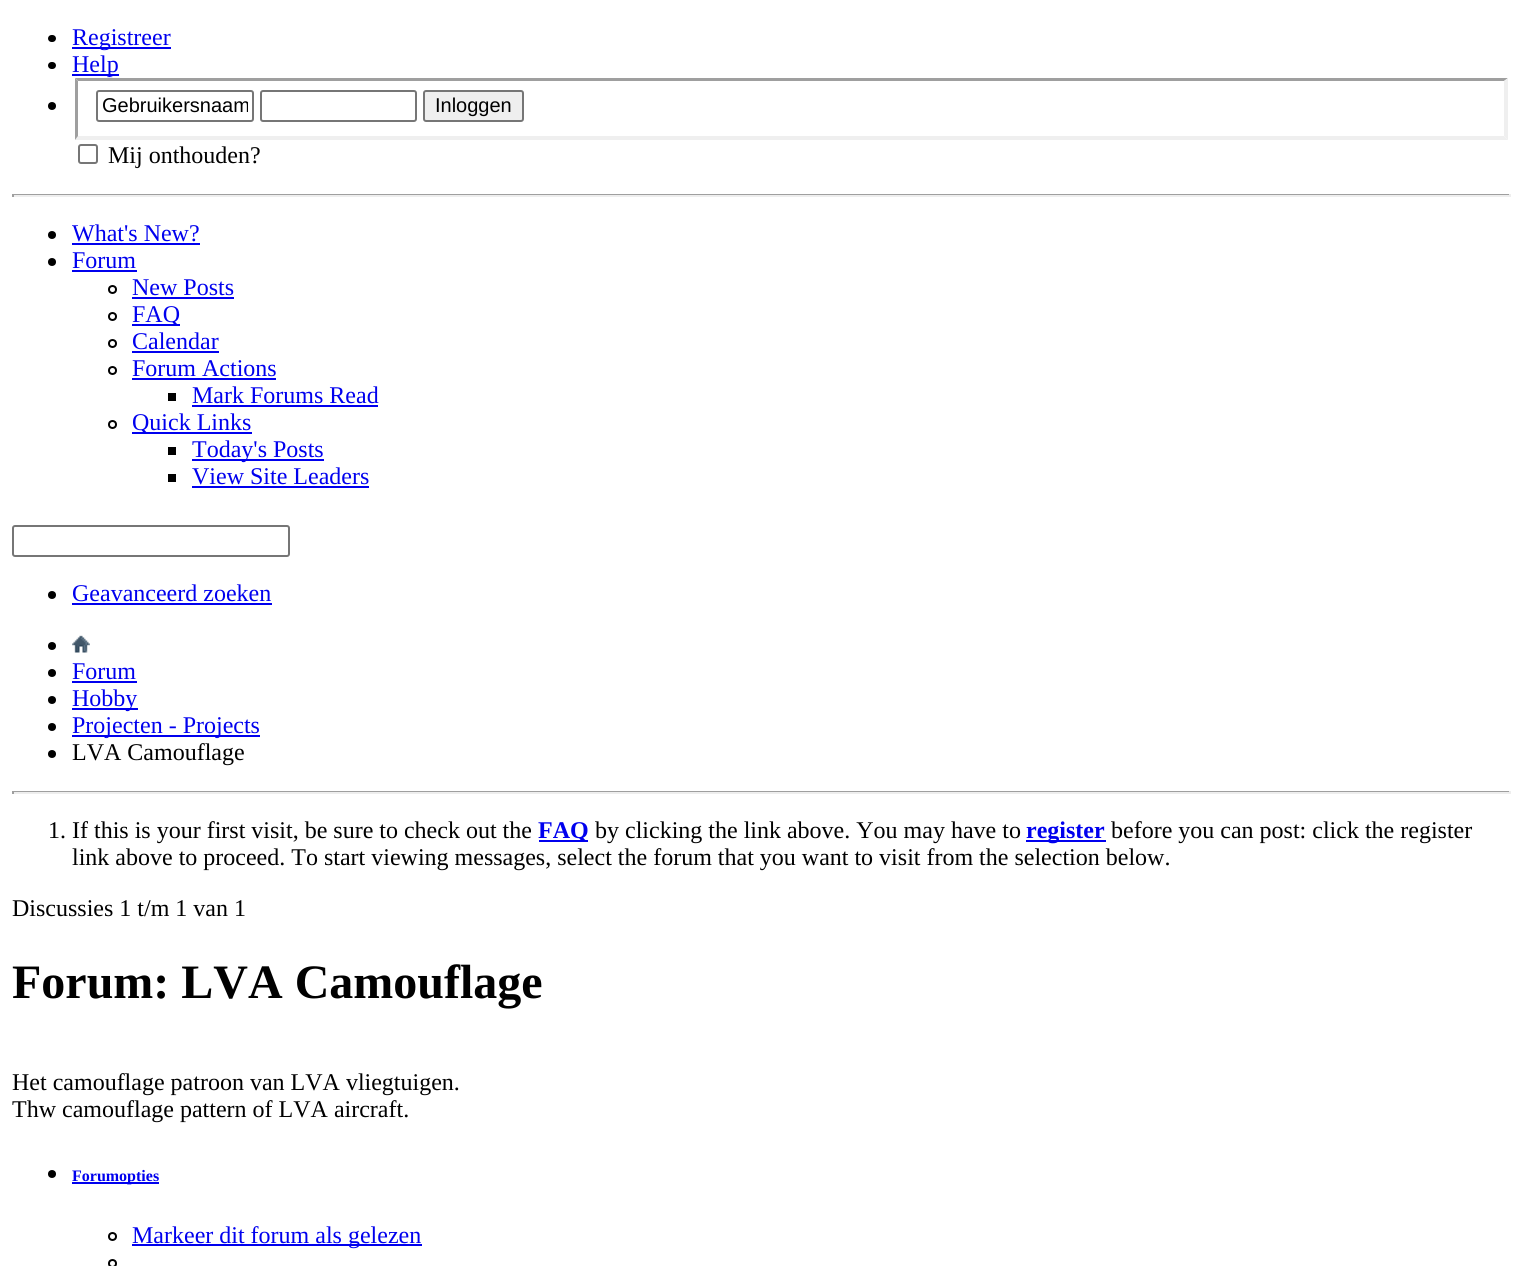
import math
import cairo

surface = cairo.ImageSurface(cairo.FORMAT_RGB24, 1522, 1266)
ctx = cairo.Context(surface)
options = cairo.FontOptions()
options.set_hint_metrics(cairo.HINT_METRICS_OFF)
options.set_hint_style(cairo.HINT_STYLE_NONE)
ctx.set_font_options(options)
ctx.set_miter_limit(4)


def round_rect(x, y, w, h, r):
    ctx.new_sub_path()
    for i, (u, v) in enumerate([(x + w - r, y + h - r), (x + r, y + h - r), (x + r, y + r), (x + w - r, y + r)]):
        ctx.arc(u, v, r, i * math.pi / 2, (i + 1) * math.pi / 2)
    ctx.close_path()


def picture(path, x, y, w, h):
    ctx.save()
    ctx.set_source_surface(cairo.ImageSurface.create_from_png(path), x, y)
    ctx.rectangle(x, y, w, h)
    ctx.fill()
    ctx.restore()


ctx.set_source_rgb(1, 1, 1)
ctx.paint()
ctx.set_source_rgb(0, 0, 0)
round_rect(48, 35, 8, 7, 3.5)
ctx.fill()
ctx.set_source_rgb(0, 0, 0.933)
ctx.rectangle(72, 47, 99, 2)
ctx.fill()
ctx.select_font_face("Liberation Serif")
ctx.set_font_size(24)
ctx.move_to(72, 45)
ctx.show_text("Registreer")
ctx.set_source_rgb(0, 0, 0)
round_rect(48, 62, 8, 7, 3.5)
ctx.fill()
ctx.set_source_rgb(0, 0, 0.933)
ctx.rectangle(72, 74, 47, 2)
ctx.fill()
ctx.move_to(72, 72)
ctx.show_text("Help")
ctx.set_source_rgb(0, 0, 0)
ctx.new_path()
ctx.arc(52, 106, 4, 0, 2 * math.pi)
ctx.fill()
ctx.set_source_rgb(0.624, 0.624, 0.624)
ctx.new_path()
ctx.move_to(75, 78)
ctx.line_to(1508, 78)
ctx.line_to(1504, 81)
ctx.line_to(78, 81)
ctx.close_path()
ctx.fill()
ctx.set_source_rgb(0.937, 0.937, 0.937)
ctx.new_path()
ctx.move_to(1508, 78)
ctx.line_to(1508, 140)
ctx.line_to(1504, 136)
ctx.line_to(1504, 81)
ctx.close_path()
ctx.fill()
ctx.new_path()
ctx.move_to(1508, 140)
ctx.line_to(75, 140)
ctx.line_to(78, 136)
ctx.line_to(1504, 136)
ctx.close_path()
ctx.fill()
ctx.set_source_rgb(0.624, 0.624, 0.624)
ctx.new_path()
ctx.move_to(75, 140)
ctx.line_to(75, 78)
ctx.line_to(78, 81)
ctx.line_to(78, 136)
ctx.close_path()
ctx.fill()
round_rect(97, 91, 156, 30, 2)
ctx.set_source_rgb(0.463, 0.463, 0.463)
ctx.stroke()
ctx.save()
ctx.rectangle(102, 95, 146, 22)
ctx.clip()
ctx.select_font_face("Liberation Sans")
ctx.set_font_size(20)
ctx.set_source_rgb(0, 0, 0)
ctx.move_to(102, 112)
ctx.show_text("Gebruikersnaam")
ctx.restore()
round_rect(261, 91, 155, 30, 2)
ctx.stroke()
ctx.set_source_rgb(0.937, 0.937, 0.937)
round_rect(424, 91, 99, 30, 2)
ctx.fill_preserve()
ctx.set_source_rgb(0.463, 0.463, 0.463)
ctx.stroke()
ctx.select_font_face("Liberation Sans")
ctx.set_font_size(20)
ctx.set_source_rgb(0, 0, 0)
ctx.move_to(435, 112)
ctx.show_text("Inloggen")
round_rect(79, 145, 18, 18, 2)
ctx.set_source_rgb(0.463, 0.463, 0.463)
ctx.stroke()
ctx.select_font_face("Liberation Serif")
ctx.set_font_size(24)
ctx.set_source_rgb(0, 0, 0)
ctx.move_to(108, 163)
ctx.show_text("Mij onthouden?")
ctx.set_source_rgb(0.624, 0.624, 0.624)
ctx.rectangle(12, 194, 1499, 1)
ctx.fill()
ctx.set_source_rgb(0.933, 0.933, 0.933)
ctx.rectangle(1509, 194, 2, 3)
ctx.fill()
ctx.rectangle(12, 195, 1499, 2)
ctx.fill()
ctx.set_source_rgb(0.624, 0.624, 0.624)
ctx.rectangle(12, 194, 2, 3)
ctx.fill()
ctx.set_source_rgb(0, 0, 0)
ctx.arc(52, 235, 4, 0, 2 * math.pi)
ctx.fill()
ctx.set_source_rgb(0, 0, 0.933)
ctx.move_to(72, 241)
ctx.show_text("What's New?")
ctx.rectangle(72, 243, 128, 2)
ctx.fill()
ctx.set_source_rgb(0, 0, 0)
ctx.arc(52, 262, 4, 0, 2 * math.pi)
ctx.fill()
ctx.set_source_rgb(0, 0, 0.933)
ctx.move_to(72, 268)
ctx.show_text("Forum")
ctx.rectangle(72, 270, 65, 2)
ctx.fill()
ctx.arc(112.5, 289.5, 3.5, 0, 2 * math.pi)
ctx.set_source_rgb(0, 0, 0)
ctx.stroke()
ctx.set_source_rgb(0, 0, 0.933)
ctx.move_to(132, 295)
ctx.show_text("New Posts")
ctx.rectangle(132, 297, 102, 2)
ctx.fill()
ctx.arc(112.5, 316.5, 3.5, 0, 2 * math.pi)
ctx.set_source_rgb(0, 0, 0)
ctx.stroke()
ctx.set_source_rgb(0, 0, 0.933)
ctx.rectangle(132, 324, 48, 2)
ctx.fill()
ctx.move_to(132, 322)
ctx.show_text("FAQ")
ctx.new_path()
ctx.arc(112.5, 343.5, 3.5, 0, 2 * math.pi)
ctx.set_source_rgb(0, 0, 0)
ctx.stroke()
ctx.set_source_rgb(0, 0, 0.933)
ctx.move_to(132, 349)
ctx.show_text("Calendar")
ctx.rectangle(132, 351, 87, 2)
ctx.fill()
ctx.arc(112.5, 370.5, 3.5, 0, 2 * math.pi)
ctx.set_source_rgb(0, 0, 0)
ctx.stroke()
ctx.set_source_rgb(0, 0, 0.933)
ctx.move_to(132, 376)
ctx.show_text("Forum Actions")
ctx.rectangle(132, 378, 144, 2)
ctx.fill()
ctx.set_source_rgb(0, 0, 0)
ctx.rectangle(168, 393, 8, 8)
ctx.fill()
ctx.set_source_rgb(0, 0, 0.933)
ctx.move_to(192, 403)
ctx.show_text("Mark Forums Read")
ctx.rectangle(192, 405, 186, 2)
ctx.fill()
ctx.arc(112.5, 424.5, 3.5, 0, 2 * math.pi)
ctx.set_source_rgb(0, 0, 0)
ctx.stroke()
ctx.set_source_rgb(0, 0, 0.933)
ctx.rectangle(132, 432, 120, 2)
ctx.fill()
ctx.move_to(132, 430)
ctx.show_text("Quick Links")
ctx.set_source_rgb(0, 0, 0)
ctx.rectangle(168, 447, 8, 8)
ctx.fill()
ctx.set_source_rgb(0, 0, 0.933)
ctx.rectangle(192, 459, 132, 2)
ctx.fill()
ctx.move_to(192, 457)
ctx.show_text("Today's Posts")
ctx.set_source_rgb(0, 0, 0)
ctx.rectangle(168, 474, 8, 8)
ctx.fill()
ctx.set_source_rgb(0, 0, 0.933)
ctx.move_to(192, 484)
ctx.show_text("View Site Leaders")
ctx.rectangle(192, 486, 177, 2)
ctx.fill()
round_rect(13, 526, 276, 30, 2)
ctx.set_source_rgb(0.463, 0.463, 0.463)
ctx.stroke()
ctx.set_source_rgb(0, 0, 0)
ctx.arc(52, 595, 4, 0, 2 * math.pi)
ctx.fill()
ctx.set_source_rgb(0, 0, 0.933)
ctx.move_to(72, 601)
ctx.show_text("Geavanceerd zoeken")
ctx.rectangle(72, 603, 200, 2)
ctx.fill()
ctx.set_source_rgb(0, 0, 0)
ctx.arc(52, 646, 4, 0, 2 * math.pi)
ctx.fill()
picture("img1.png", 72, 635, 18, 18)
ctx.arc(52, 673, 4, 0, 2 * math.pi)
ctx.fill()
ctx.set_source_rgb(0, 0, 0.933)
ctx.move_to(72, 679)
ctx.show_text("Forum")
ctx.rectangle(72, 681, 65, 2)
ctx.fill()
ctx.set_source_rgb(0, 0, 0)
ctx.arc(52, 700, 4, 0, 2 * math.pi)
ctx.fill()
ctx.set_source_rgb(0, 0, 0.933)
ctx.rectangle(72, 708, 66, 2)
ctx.fill()
ctx.move_to(72, 706)
ctx.show_text("Hobby")
ctx.set_source_rgb(0, 0, 0)
ctx.new_path()
ctx.arc(52, 727, 4, 0, 2 * math.pi)
ctx.fill()
ctx.set_source_rgb(0, 0, 0.933)
ctx.rectangle(72, 735, 188, 2)
ctx.fill()
ctx.move_to(72, 733)
ctx.show_text("Projecten - Projects")
ctx.set_source_rgb(0, 0, 0)
ctx.new_path()
ctx.arc(52, 754, 4, 0, 2 * math.pi)
ctx.fill()
ctx.move_to(72, 760)
ctx.show_text("LVA Camouflage")
ctx.set_source_rgb(0.624, 0.624, 0.624)
ctx.rectangle(12, 791, 1499, 1)
ctx.fill()
ctx.set_source_rgb(0.933, 0.933, 0.933)
ctx.rectangle(1509, 791, 2, 3)
ctx.fill()
ctx.rectangle(12, 792, 1499, 2)
ctx.fill()
ctx.set_source_rgb(0.624, 0.624, 0.624)
ctx.rectangle(12, 791, 2, 3)
ctx.fill()
ctx.set_source_rgb(0, 0, 0)
ctx.move_to(48, 838)
ctx.show_text("1. If this is your first visit, be sure to check out the")
ctx.set_source_rgb(0, 0, 0.933)
ctx.rectangle(539, 840, 49, 2)
ctx.fill()
ctx.select_font_face("Liberation Serif", cairo.FONT_SLANT_NORMAL, cairo.FONT_WEIGHT_BOLD)
ctx.move_to(538, 838)
ctx.show_text("FAQ")
ctx.select_font_face("Liberation Serif")
ctx.set_source_rgb(0, 0, 0)
ctx.move_to(595, 838)
ctx.show_text("by clicking the link above. You may have to")
ctx.set_source_rgb(0, 0, 0.933)
ctx.rectangle(1026, 840, 80, 2)
ctx.fill()
ctx.select_font_face("Liberation Serif", cairo.FONT_SLANT_NORMAL, cairo.FONT_WEIGHT_BOLD)
ctx.move_to(1026, 838)
ctx.show_text("register")
ctx.select_font_face("Liberation Serif")
ctx.set_source_rgb(0, 0, 0)
ctx.move_to(1111, 838)
ctx.show_text("before you can post: click the register")
ctx.move_to(72, 865)
ctx.show_text("link above to proceed. To start viewing messages, select the forum that you want to visit from the selection below.")
ctx.move_to(12, 916)
ctx.show_text("Discussies 1 t/m 1 van 1")
ctx.select_font_face("Liberation Serif", cairo.FONT_SLANT_NORMAL, cairo.FONT_WEIGHT_BOLD)
ctx.set_font_size(48)
ctx.move_to(12, 998)
ctx.show_text("Forum: LVA Camouflage")
ctx.select_font_face("Liberation Serif")
ctx.set_font_size(24)
ctx.move_to(12, 1090)
ctx.show_text("Het camouflage patroon van LVA vliegtuigen.")
ctx.move_to(12, 1117)
ctx.show_text("Thw camouflage pattern of LVA aircraft.")
ctx.new_path()
ctx.arc(52, 1174, 4, 0, 2 * math.pi)
ctx.fill()
ctx.set_source_rgb(0, 0, 0.933)
ctx.rectangle(72, 1182, 87, 2)
ctx.fill()
ctx.select_font_face("Liberation Serif", cairo.FONT_SLANT_NORMAL, cairo.FONT_WEIGHT_BOLD)
ctx.set_font_size(16)
ctx.move_to(72, 1181)
ctx.show_text("Forumopties")
ctx.new_path()
ctx.arc(112.5, 1236.5, 3.5, 0, 2 * math.pi)
ctx.set_source_rgb(0, 0, 0)
ctx.stroke()
ctx.set_source_rgb(0, 0, 0.933)
ctx.rectangle(132, 1244, 290, 2)
ctx.fill()
ctx.select_font_face("Liberation Serif")
ctx.set_font_size(24)
ctx.move_to(132, 1243)
ctx.show_text("Markeer dit forum als gelezen")
ctx.new_path()
ctx.arc(112.5, 1263.5, 3.5, 0, 2 * math.pi)
ctx.set_source_rgb(0, 0, 0)
ctx.stroke()
surface.write_to_png("page.png")
